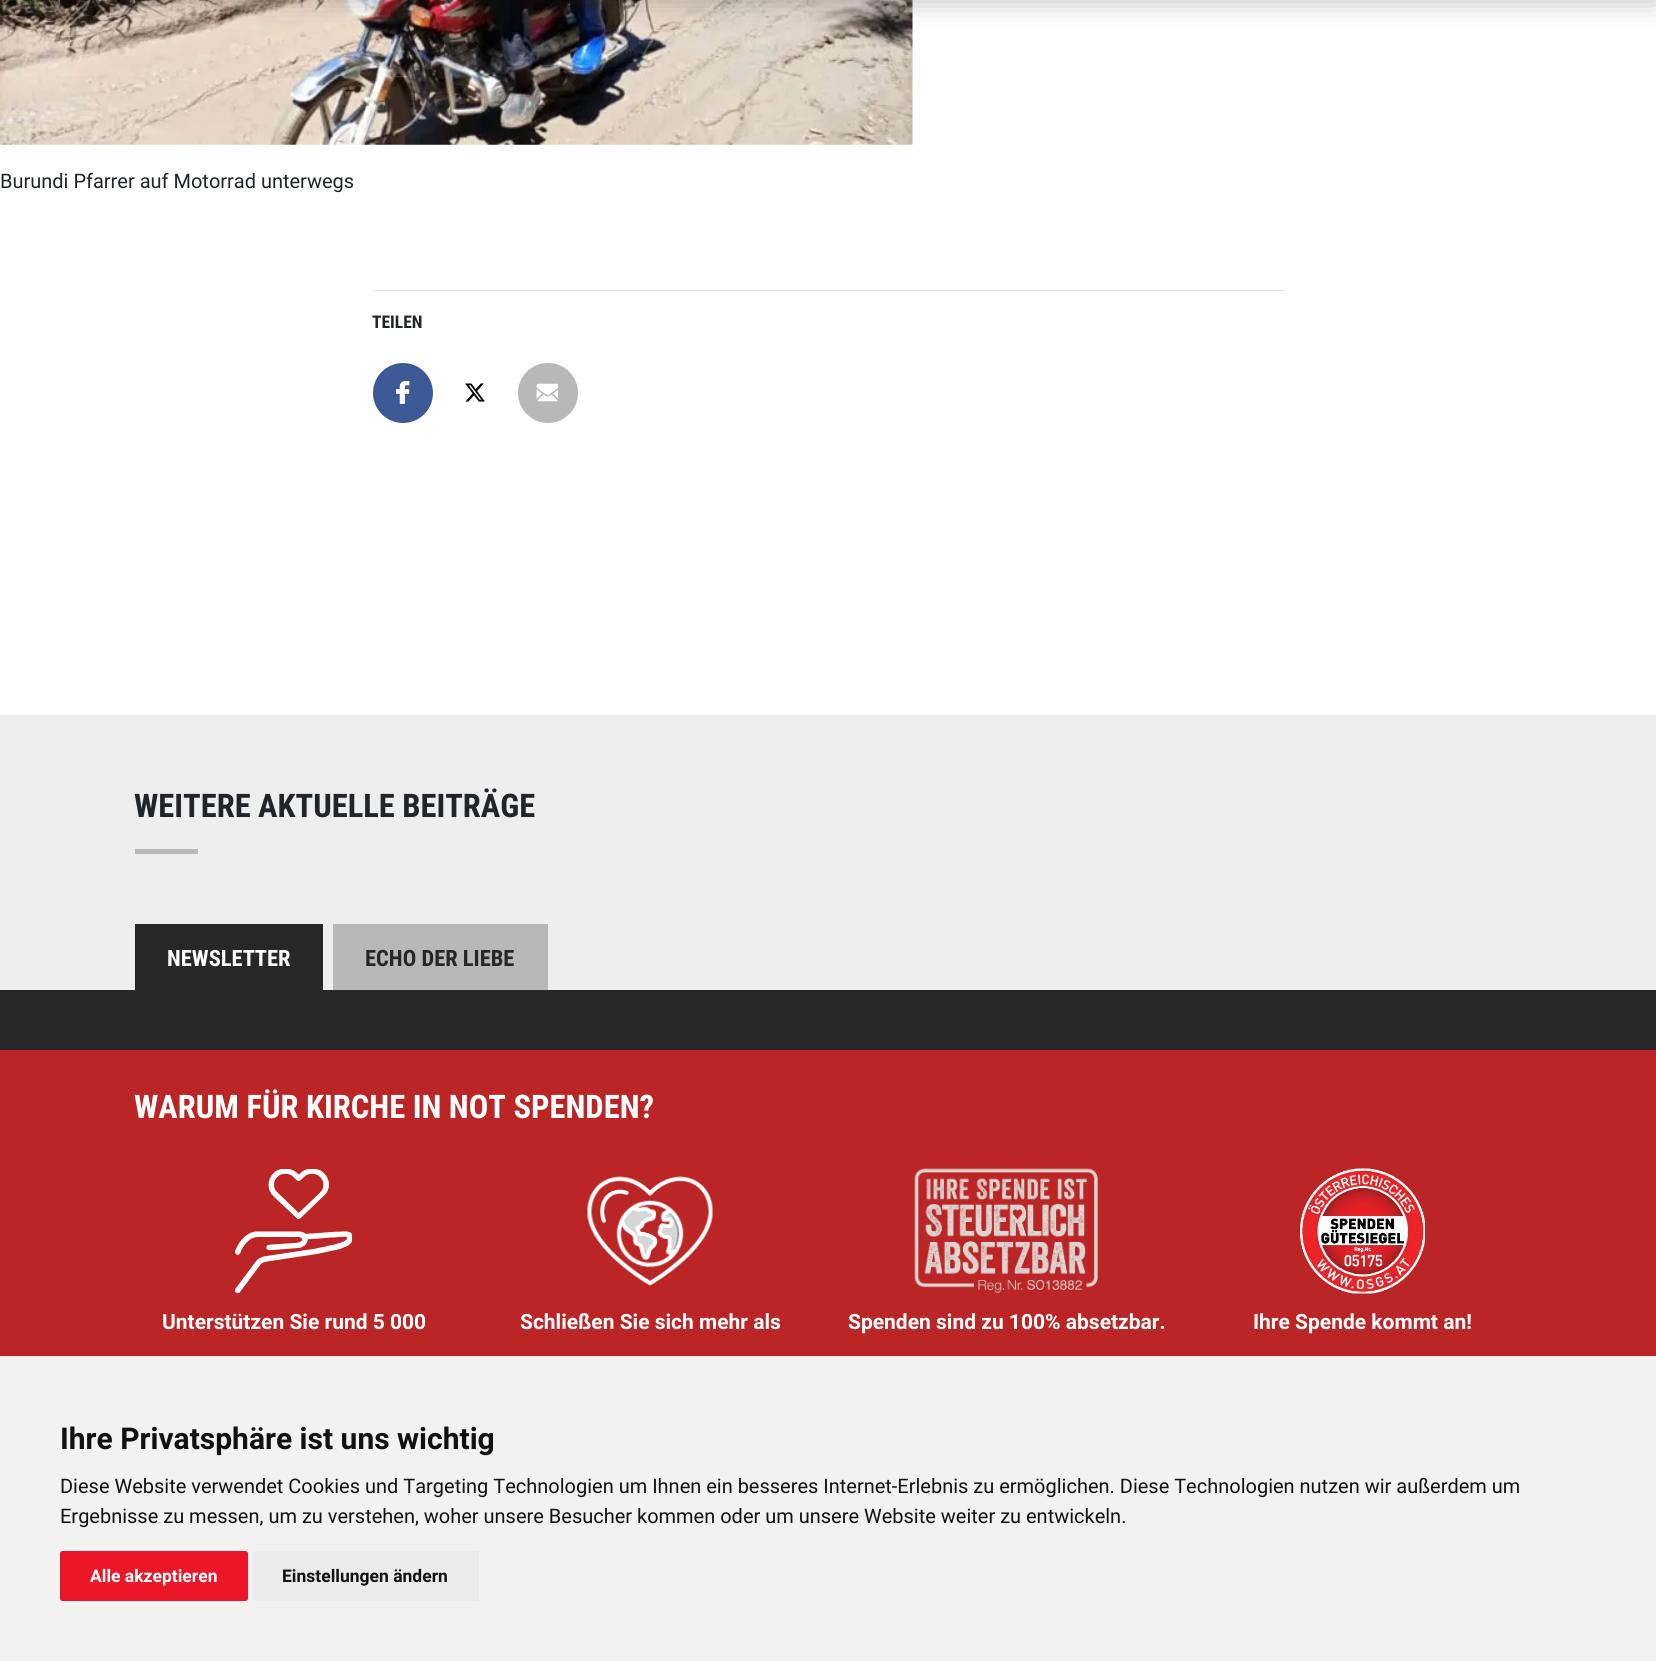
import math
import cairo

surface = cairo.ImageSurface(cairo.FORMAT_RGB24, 1656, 1661)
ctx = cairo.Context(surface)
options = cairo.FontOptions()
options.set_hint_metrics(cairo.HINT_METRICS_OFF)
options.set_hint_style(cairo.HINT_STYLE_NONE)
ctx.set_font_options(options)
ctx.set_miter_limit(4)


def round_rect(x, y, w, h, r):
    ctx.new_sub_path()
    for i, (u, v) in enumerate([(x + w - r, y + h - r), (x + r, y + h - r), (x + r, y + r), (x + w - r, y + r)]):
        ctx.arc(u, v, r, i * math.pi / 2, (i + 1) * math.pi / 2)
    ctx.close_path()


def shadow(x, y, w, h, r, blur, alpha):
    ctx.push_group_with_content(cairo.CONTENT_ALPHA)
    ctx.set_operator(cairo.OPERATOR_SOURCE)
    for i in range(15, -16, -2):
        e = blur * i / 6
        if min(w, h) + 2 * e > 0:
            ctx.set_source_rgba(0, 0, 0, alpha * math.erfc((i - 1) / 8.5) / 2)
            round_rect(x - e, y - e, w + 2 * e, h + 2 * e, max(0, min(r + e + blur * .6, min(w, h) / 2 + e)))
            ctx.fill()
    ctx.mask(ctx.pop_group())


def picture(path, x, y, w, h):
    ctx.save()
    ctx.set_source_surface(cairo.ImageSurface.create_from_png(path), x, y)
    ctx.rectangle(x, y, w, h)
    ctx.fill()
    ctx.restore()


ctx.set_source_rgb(1, 1, 1)
ctx.paint()
picture("img1.png", 0, 0, 913, 145)
ctx.set_source_rgb(0.153, 0.153, 0.153)
shadow(0, -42, 1656, 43, 0, 14, 0.3)
ctx.select_font_face("Roboto")
ctx.set_font_size(20)
ctx.set_source_rgb(0.129, 0.145, 0.161)
ctx.move_to(0, 188)
ctx.show_text("Burundi Pfarrer auf Motorrad unterwegs")
ctx.set_source_rgb(0.871, 0.886, 0.902)
ctx.rectangle(373, 290, 912, 1)
ctx.fill()
ctx.select_font_face("Roboto Condensed", cairo.FONT_SLANT_NORMAL, cairo.FONT_WEIGHT_BOLD)
ctx.set_font_size(17.5)
ctx.set_source_rgb(0.129, 0.145, 0.161)
ctx.move_to(372, 328)
ctx.show_text("TEILEN")
ctx.set_source_rgb(0.235, 0.349, 0.584)
ctx.new_path()
ctx.arc(403, 393, 30, 0, 2 * math.pi)
ctx.fill()
picture("img2.png", 396, 381, 14, 23)
picture("img3.png", 465, 383, 20, 19)
ctx.set_source_rgb(0.722, 0.722, 0.722)
ctx.arc(548, 393, 30, 0, 2 * math.pi)
ctx.fill()
picture("img4.png", 536, 383, 22, 19)
ctx.set_source_rgb(0.933, 0.933, 0.937)
ctx.rectangle(0, 715, 1656, 275)
ctx.fill()
ctx.set_font_size(32.5)
ctx.set_source_rgb(0.129, 0.145, 0.161)
ctx.move_to(134, 817)
ctx.show_text("WEITERE AKTUELLE BEITRÄGE")
ctx.set_source_rgb(0.722, 0.722, 0.722)
ctx.rectangle(135, 849, 63, 5)
ctx.fill()
ctx.set_source_rgb(0.153, 0.153, 0.153)
ctx.rectangle(0, 990, 1656, 60)
ctx.fill()
ctx.rectangle(135, 924, 188, 66)
ctx.fill()
ctx.set_font_size(22.5)
ctx.set_source_rgb(1, 1, 1)
ctx.move_to(167, 966)
ctx.show_text("NEWSLETTER")
ctx.set_source_rgb(0.722, 0.722, 0.722)
ctx.rectangle(333, 924, 215, 66)
ctx.fill()
ctx.set_source_rgb(0.153, 0.153, 0.153)
ctx.move_to(365, 966)
ctx.show_text("ECHO DER LIEBE")
ctx.set_source_rgb(0.733, 0.145, 0.145)
ctx.rectangle(0, 1050, 1656, 306)
ctx.fill()
ctx.set_font_size(32.5)
ctx.set_source_rgb(1, 1, 1)
ctx.move_to(134, 1118)
ctx.show_text("WARUM FÜR KIRCHE IN NOT SPENDEN?")
picture("img5.png", 235, 1169, 118, 124)
ctx.select_font_face("Roboto", cairo.FONT_SLANT_NORMAL, cairo.FONT_WEIGHT_BOLD)
ctx.set_font_size(21)
ctx.move_to(162, 1329)
ctx.show_text("Unterstützen Sie rund 5 000")
picture("img6.png", 587, 1176, 126, 110)
ctx.move_to(520, 1329)
ctx.show_text("Schließen Sie sich mehr als")
picture("img7.png", 914, 1168, 184, 125)
ctx.move_to(848, 1329)
ctx.show_text("Spenden sind zu 100% absetzbar.")
picture("img8.png", 1300, 1168, 125, 126)
ctx.move_to(1253, 1329)
ctx.show_text("Ihre Spende kommt an!")
ctx.set_source_rgb(0.949, 0.949, 0.949)
ctx.rectangle(0, 1356, 1656, 305)
ctx.fill()
ctx.set_font_size(30)
ctx.set_source_rgb(0.067, 0.067, 0.067)
ctx.move_to(60, 1449)
ctx.show_text("Ihre Privatsphäre ist uns wichtig")
ctx.select_font_face("Roboto")
ctx.set_font_size(20)
ctx.move_to(60, 1493)
ctx.show_text("Diese Website verwendet Cookies und Targeting Technologien um Ihnen ein besseres Internet-Erlebnis zu ermöglichen. Diese Technologien nutzen wir außerdem um")
ctx.move_to(60, 1523)
ctx.show_text("Ergebnisse zu messen, um zu verstehen, woher unsere Besucher kommen oder um unsere Website weiter zu entwickeln.")
ctx.set_source_rgb(0.929, 0.086, 0.161)
round_rect(60, 1551, 188, 50, 2.5)
ctx.fill()
ctx.select_font_face("Roboto", cairo.FONT_SLANT_NORMAL, cairo.FONT_WEIGHT_BOLD)
ctx.set_font_size(17.5)
ctx.set_source_rgb(1, 1, 1)
ctx.move_to(90, 1582)
ctx.show_text("Alle akzeptieren")
ctx.set_source_rgb(0.918, 0.918, 0.918)
round_rect(253, 1551, 226, 50, 2.5)
ctx.fill()
ctx.set_source_rgb(0.067, 0.067, 0.067)
ctx.move_to(282, 1582)
ctx.show_text("Einstellungen ändern")
surface.write_to_png("page.png")
